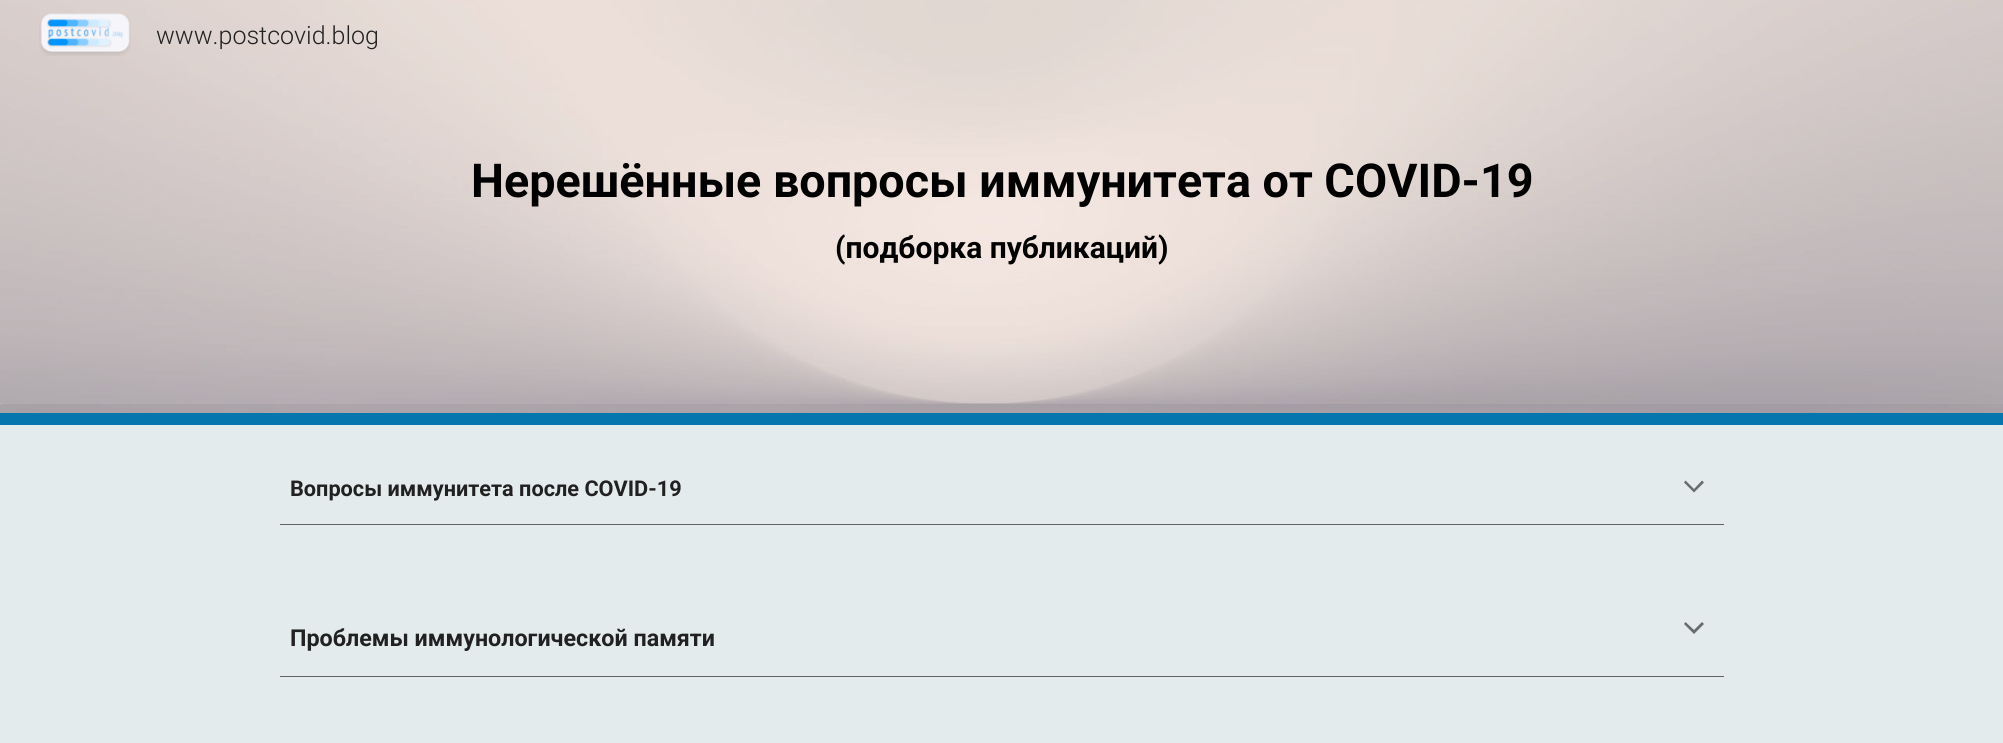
import math
import cairo

surface = cairo.ImageSurface(cairo.FORMAT_RGB24, 2003, 743)
ctx = cairo.Context(surface)
options = cairo.FontOptions()
options.set_hint_metrics(cairo.HINT_METRICS_OFF)
options.set_hint_style(cairo.HINT_STYLE_NONE)
ctx.set_font_options(options)
ctx.set_miter_limit(4)


def picture(path, x, y, w, h):
    ctx.save()
    ctx.set_source_surface(cairo.ImageSurface.create_from_png(path), x, y)
    ctx.rectangle(x, y, w, h)
    ctx.fill()
    ctx.restore()


ctx.set_source_rgb(0.894, 0.918, 0.929)
ctx.paint()
picture("img2.png", 0, 0, 2003, 413)
picture("img1.png", 39, 13, 92, 43)
ctx.select_font_face("Roboto Light")
ctx.set_font_size(25)
ctx.set_source_rgb(0.129, 0.129, 0.129)
ctx.move_to(156, 44)
ctx.show_text("www.postcovid.blog")
ctx.set_source_rgb(0.024, 0.467, 0.682)
ctx.rectangle(0, 413, 2003, 12)
ctx.fill()
ctx.select_font_face("Roboto", cairo.FONT_SLANT_NORMAL, cairo.FONT_WEIGHT_BOLD)
ctx.set_font_size(46.7)
ctx.set_source_rgb(0, 0, 0)
ctx.move_to(471, 197)
ctx.show_text("Нерешённые вопросы иммунитета от COVID-19")
ctx.set_font_size(30)
ctx.move_to(835, 258)
ctx.show_text("(подборка публикаций)")
ctx.set_source_rgb(0.373, 0.388, 0.408)
ctx.rectangle(280, 524, 1444, 1)
ctx.fill()
ctx.set_font_size(21.7)
ctx.set_source_rgb(0.129, 0.129, 0.129)
ctx.move_to(290, 496)
ctx.show_text("Вопросы иммунитета после COVID-19")
ctx.set_source_rgb(0.412, 0.424, 0.427)
ctx.new_path()
ctx.move_to(1685.5, 480.5)
ctx.line_to(1684, 482.5)
ctx.line_to(1694, 492.5)
ctx.line_to(1704, 482.5)
ctx.line_to(1702, 480.5)
ctx.line_to(1694, 489)
ctx.fill()
ctx.set_source_rgb(0.373, 0.388, 0.408)
ctx.rectangle(280, 676, 1444, 1)
ctx.fill()
ctx.set_font_size(23.3)
ctx.set_source_rgb(0.129, 0.129, 0.129)
ctx.move_to(290, 646)
ctx.show_text("Проблемы иммунологической памяти")
ctx.set_source_rgb(0.412, 0.424, 0.427)
ctx.new_path()
ctx.move_to(1685.5, 622)
ctx.line_to(1684, 624)
ctx.line_to(1694, 634)
ctx.line_to(1704, 624)
ctx.line_to(1702, 622)
ctx.line_to(1694, 630)
ctx.fill()
surface.write_to_png("page.png")
